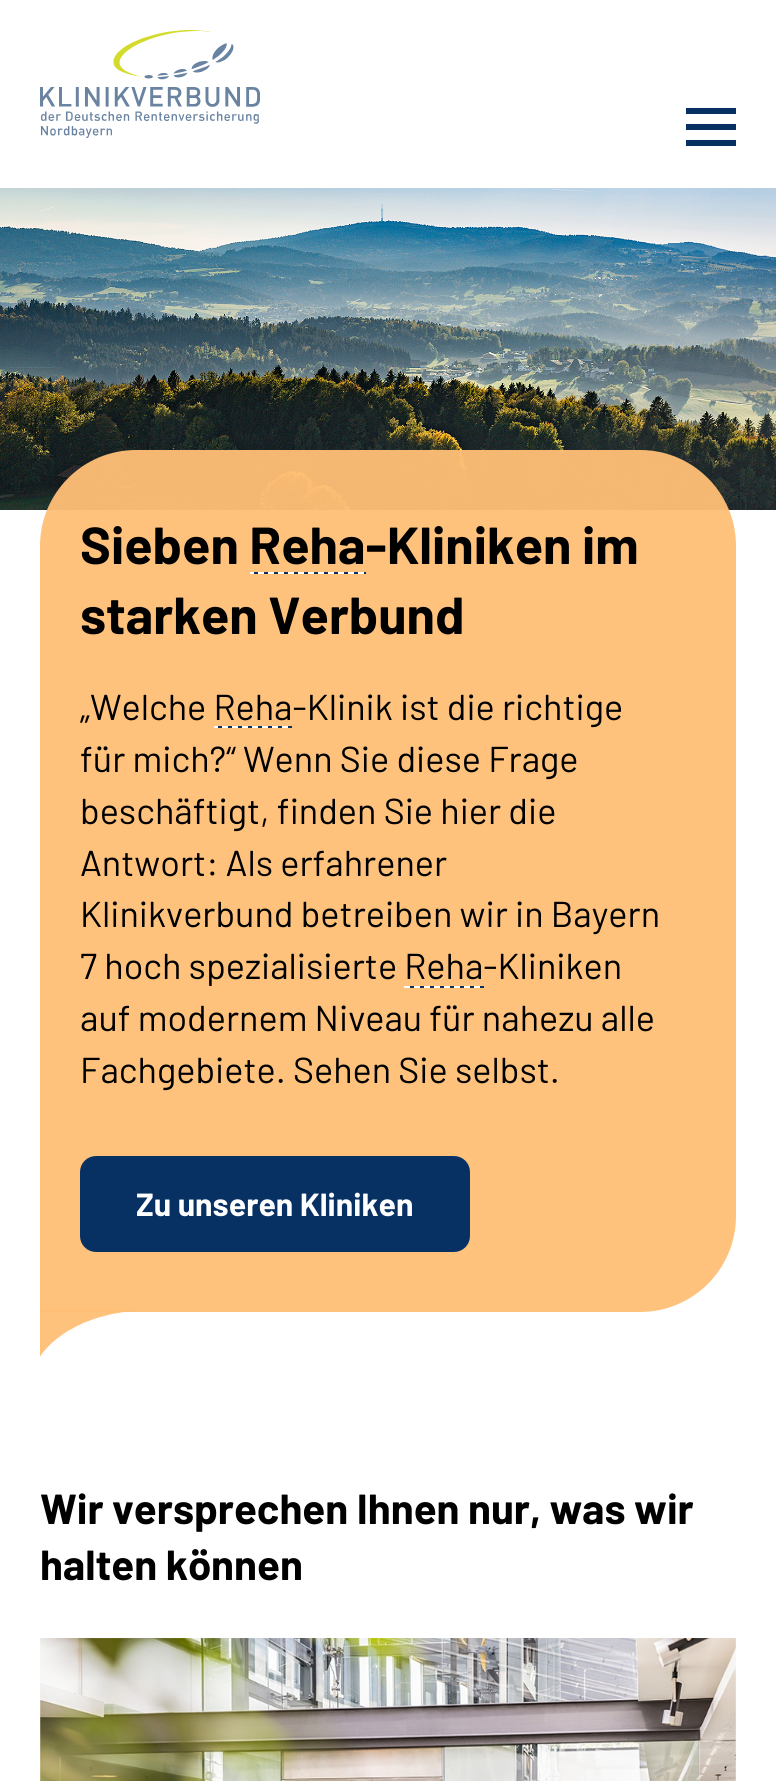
import math
import cairo

surface = cairo.ImageSurface(cairo.FORMAT_RGB24, 776, 1781)
ctx = cairo.Context(surface)
options = cairo.FontOptions()
options.set_hint_metrics(cairo.HINT_METRICS_OFF)
options.set_hint_style(cairo.HINT_STYLE_NONE)
ctx.set_font_options(options)
ctx.set_miter_limit(4)


def round_rect(x, y, w, h, r):
    ctx.new_sub_path()
    for i, (u, v) in enumerate([(x + w - r, y + h - r), (x + r, y + h - r), (x + r, y + r), (x + w - r, y + r)]):
        ctx.arc(u, v, r, i * math.pi / 2, (i + 1) * math.pi / 2)
    ctx.close_path()


def picture(path, x, y, w, h):
    ctx.save()
    ctx.set_source_surface(cairo.ImageSurface.create_from_png(path), x, y)
    ctx.rectangle(x, y, w, h)
    ctx.fill()
    ctx.restore()


ctx.set_source_rgb(1, 1, 1)
ctx.paint()
picture("img1.png", 40, 30, 221, 108)
ctx.set_source_rgb(0.031, 0.192, 0.388)
ctx.new_path()
ctx.move_to(686, 146)
ctx.line_to(686, 140)
ctx.line_to(736, 140)
ctx.line_to(736, 146)
ctx.close_path()
ctx.move_to(686, 130)
ctx.line_to(686, 124)
ctx.line_to(736, 124)
ctx.line_to(736, 130)
ctx.close_path()
ctx.move_to(686, 114)
ctx.line_to(686, 108)
ctx.line_to(736, 108)
ctx.line_to(736, 114)
ctx.close_path()
ctx.fill()
picture("img2.png", 0, 188, 776, 322)
ctx.set_source_rgba(1, 0.749, 0.467, 0.95)
ctx.new_path()
ctx.move_to(136, 450)
ctx.line_to(640, 450)
ctx.curve_to(693, 450, 736, 493, 736, 546)
ctx.line_to(736, 1216)
ctx.curve_to(736, 1269, 693, 1312, 640, 1312)
ctx.line_to(40, 1312)
ctx.line_to(40, 546)
ctx.curve_to(40, 493, 83, 450, 136, 450)
ctx.close_path()
ctx.fill()
ctx.select_font_face("Barlow", cairo.FONT_SLANT_NORMAL, cairo.FONT_WEIGHT_BOLD)
ctx.set_font_size(52)
ctx.set_source_rgb(0, 0, 0)
ctx.move_to(80, 564)
ctx.show_text("Sieben Reha-Kliniken im")
picture("img3.png", 250, 572, 116, 2)
ctx.move_to(80, 634)
ctx.show_text("starken Verbund")
ctx.select_font_face("Barlow")
ctx.set_font_size(36)
ctx.move_to(80, 720)
ctx.show_text("„Welche Reha-Klinik ist die richtige")
ctx.set_source_rgb(1, 1, 1)
ctx.rectangle(214, 726, 4, 2)
ctx.fill()
ctx.set_source_rgb(0.031, 0.192, 0.388)
ctx.rectangle(218, 726, 4, 2)
ctx.fill()
ctx.set_source_rgb(1, 1, 1)
ctx.rectangle(222, 726, 6, 2)
ctx.fill()
ctx.set_source_rgb(0.031, 0.192, 0.388)
ctx.rectangle(228, 726, 4, 2)
ctx.fill()
ctx.set_source_rgb(1, 1, 1)
ctx.rectangle(232, 726, 6, 2)
ctx.fill()
ctx.set_source_rgb(0.031, 0.192, 0.388)
ctx.rectangle(238, 726, 4, 2)
ctx.fill()
ctx.set_source_rgb(1, 1, 1)
ctx.rectangle(242, 726, 6, 2)
ctx.fill()
ctx.set_source_rgb(0.031, 0.192, 0.388)
ctx.rectangle(248, 726, 4, 2)
ctx.fill()
ctx.set_source_rgb(1, 1, 1)
ctx.rectangle(252, 726, 6, 2)
ctx.fill()
ctx.set_source_rgb(0.031, 0.192, 0.388)
ctx.rectangle(258, 726, 4, 2)
ctx.fill()
ctx.set_source_rgb(1, 1, 1)
ctx.rectangle(262, 726, 6, 2)
ctx.fill()
ctx.set_source_rgb(0.031, 0.192, 0.388)
ctx.rectangle(268, 726, 4, 2)
ctx.fill()
ctx.set_source_rgb(1, 1, 1)
ctx.rectangle(272, 726, 6, 2)
ctx.fill()
ctx.set_source_rgb(0.031, 0.192, 0.388)
ctx.rectangle(278, 726, 4, 2)
ctx.fill()
ctx.set_source_rgb(1, 1, 1)
ctx.rectangle(282, 726, 6, 2)
ctx.fill()
ctx.set_source_rgb(0.031, 0.192, 0.388)
ctx.rectangle(288, 726, 4, 2)
ctx.fill()
ctx.set_source_rgb(0, 0, 0)
ctx.move_to(80, 772)
ctx.show_text("für mich?“ Wenn Sie diese Frage")
ctx.move_to(80, 824)
ctx.show_text("beschäftigt, finden Sie hier die")
ctx.move_to(80, 876)
ctx.show_text("Antwort: Als erfahrener")
ctx.move_to(80, 927)
ctx.show_text("Klinikverbund betreiben wir in Bayern")
ctx.move_to(80, 979)
ctx.show_text("7 hoch spezialisierte Reha-Kliniken")
ctx.set_source_rgb(1, 1, 1)
ctx.rectangle(404, 986, 6, 2)
ctx.fill()
ctx.set_source_rgb(0.031, 0.192, 0.388)
ctx.rectangle(410, 986, 4, 2)
ctx.fill()
ctx.set_source_rgb(1, 1, 1)
ctx.rectangle(414, 986, 6, 2)
ctx.fill()
ctx.set_source_rgb(0.031, 0.192, 0.388)
ctx.rectangle(420, 986, 4, 2)
ctx.fill()
ctx.set_source_rgb(1, 1, 1)
ctx.rectangle(424, 986, 6, 2)
ctx.fill()
ctx.set_source_rgb(0.031, 0.192, 0.388)
ctx.rectangle(430, 986, 4, 2)
ctx.fill()
ctx.set_source_rgb(1, 1, 1)
ctx.rectangle(434, 986, 6, 2)
ctx.fill()
ctx.set_source_rgb(0.031, 0.192, 0.388)
ctx.rectangle(440, 986, 4, 2)
ctx.fill()
ctx.set_source_rgb(1, 1, 1)
ctx.rectangle(444, 986, 6, 2)
ctx.fill()
ctx.set_source_rgb(0.031, 0.192, 0.388)
ctx.rectangle(450, 986, 4, 2)
ctx.fill()
ctx.set_source_rgb(1, 1, 1)
ctx.rectangle(454, 986, 6, 2)
ctx.fill()
ctx.set_source_rgb(0.031, 0.192, 0.388)
ctx.rectangle(460, 986, 4, 2)
ctx.fill()
ctx.set_source_rgb(1, 1, 1)
ctx.rectangle(464, 986, 6, 2)
ctx.fill()
ctx.set_source_rgb(0.031, 0.192, 0.388)
ctx.rectangle(470, 986, 4, 2)
ctx.fill()
ctx.set_source_rgb(1, 1, 1)
ctx.rectangle(474, 986, 6, 2)
ctx.fill()
ctx.set_source_rgb(0.031, 0.192, 0.388)
ctx.rectangle(480, 986, 4, 2)
ctx.fill()
ctx.set_source_rgb(0, 0, 0)
ctx.move_to(80, 1031)
ctx.show_text("auf modernem Niveau für nahezu alle")
ctx.move_to(80, 1083)
ctx.show_text("Fachgebiete. Sehen Sie selbst.")
ctx.set_source_rgb(0.031, 0.192, 0.388)
round_rect(82, 1158, 386, 92, 14)
ctx.fill_preserve()
ctx.set_line_width(4)
ctx.stroke()
ctx.select_font_face("Barlow", cairo.FONT_SLANT_NORMAL, cairo.FONT_WEIGHT_BOLD)
ctx.set_font_size(32)
ctx.set_source_rgb(1, 1, 1)
ctx.move_to(136, 1216)
ctx.show_text("Zu unseren Kliniken")
picture("img4.png", 40, 1310, 98, 47)
ctx.set_font_size(42)
ctx.set_source_rgb(0, 0, 0)
ctx.move_to(40, 1524)
ctx.show_text("Wir versprechen Ihnen nur, was wir")
ctx.move_to(40, 1580)
ctx.show_text("halten können")
picture("img5.png", 40, 1638, 696, 143)
surface.write_to_png("page.png")
